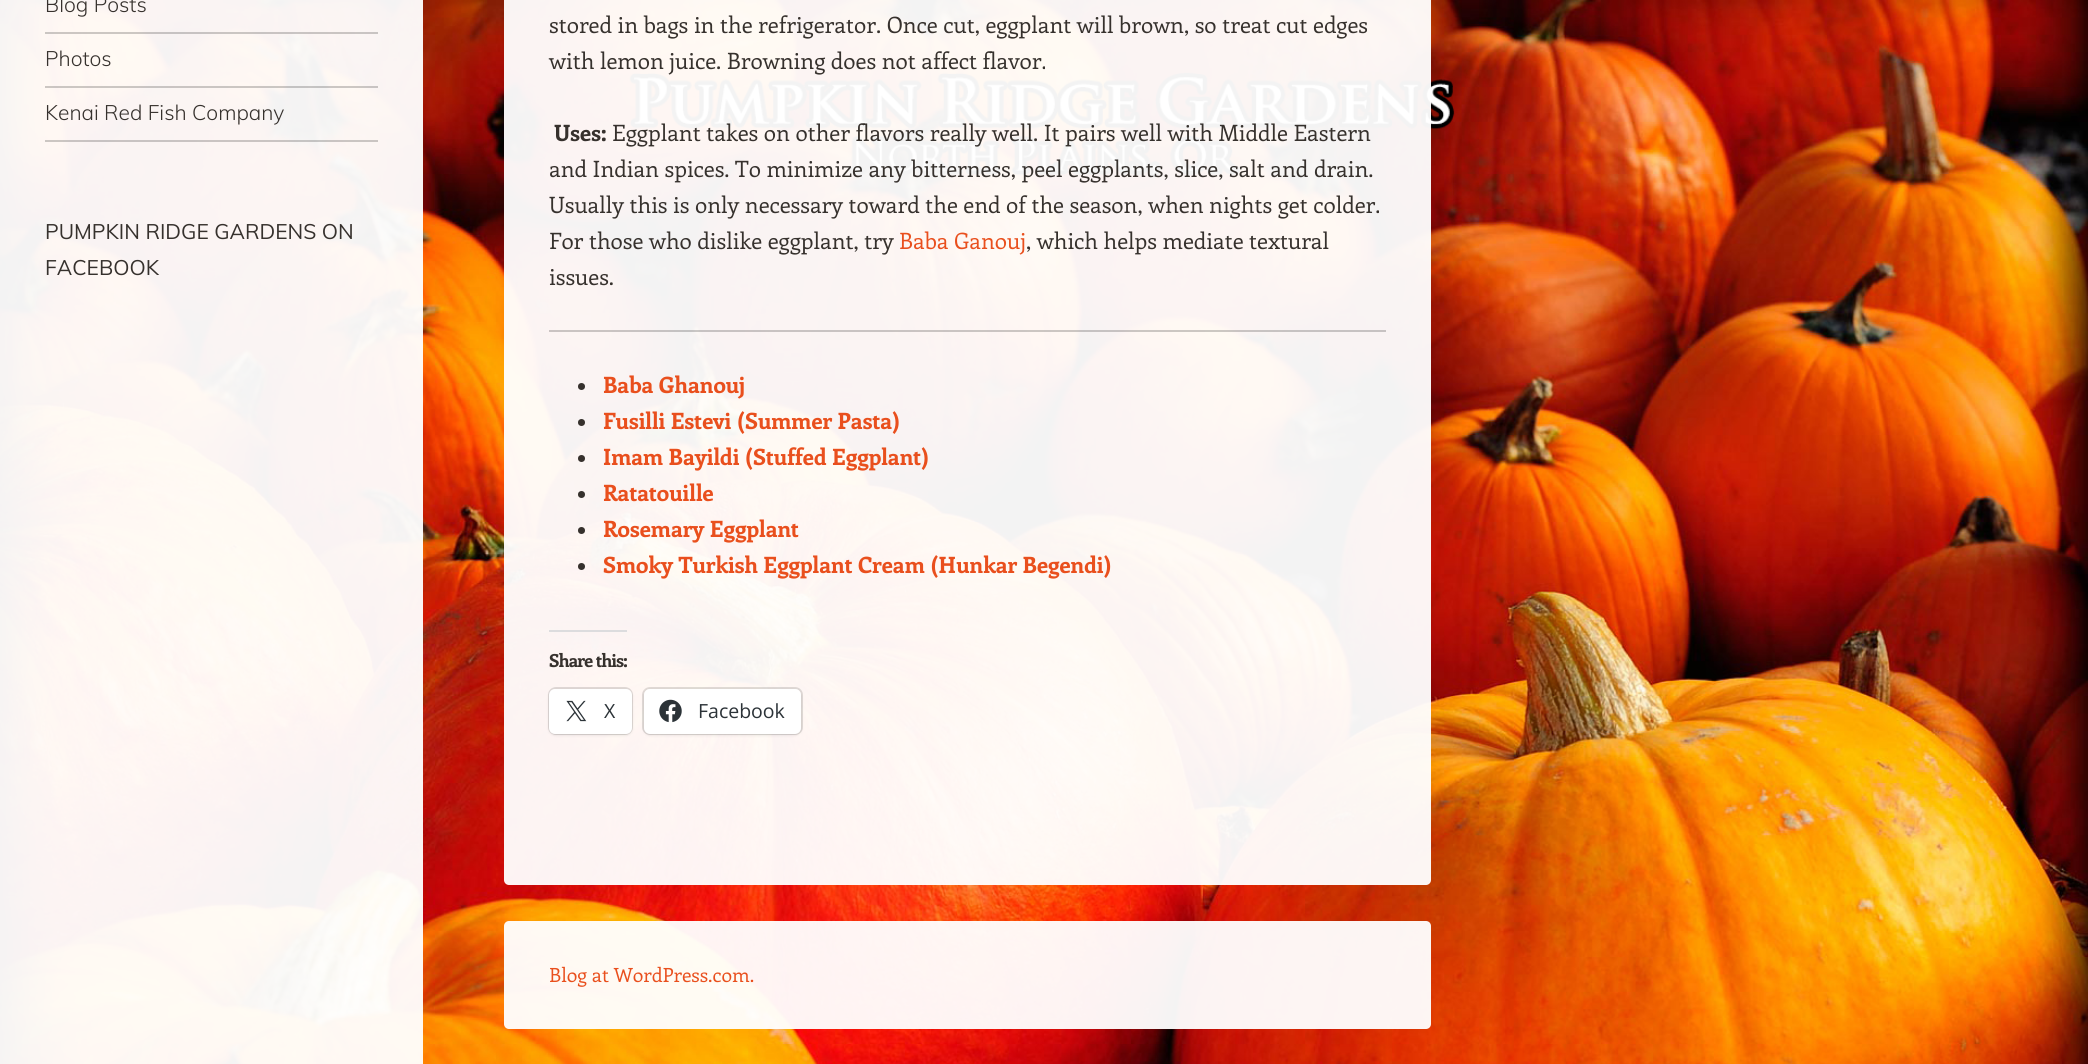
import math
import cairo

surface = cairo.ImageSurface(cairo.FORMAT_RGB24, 2088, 1064)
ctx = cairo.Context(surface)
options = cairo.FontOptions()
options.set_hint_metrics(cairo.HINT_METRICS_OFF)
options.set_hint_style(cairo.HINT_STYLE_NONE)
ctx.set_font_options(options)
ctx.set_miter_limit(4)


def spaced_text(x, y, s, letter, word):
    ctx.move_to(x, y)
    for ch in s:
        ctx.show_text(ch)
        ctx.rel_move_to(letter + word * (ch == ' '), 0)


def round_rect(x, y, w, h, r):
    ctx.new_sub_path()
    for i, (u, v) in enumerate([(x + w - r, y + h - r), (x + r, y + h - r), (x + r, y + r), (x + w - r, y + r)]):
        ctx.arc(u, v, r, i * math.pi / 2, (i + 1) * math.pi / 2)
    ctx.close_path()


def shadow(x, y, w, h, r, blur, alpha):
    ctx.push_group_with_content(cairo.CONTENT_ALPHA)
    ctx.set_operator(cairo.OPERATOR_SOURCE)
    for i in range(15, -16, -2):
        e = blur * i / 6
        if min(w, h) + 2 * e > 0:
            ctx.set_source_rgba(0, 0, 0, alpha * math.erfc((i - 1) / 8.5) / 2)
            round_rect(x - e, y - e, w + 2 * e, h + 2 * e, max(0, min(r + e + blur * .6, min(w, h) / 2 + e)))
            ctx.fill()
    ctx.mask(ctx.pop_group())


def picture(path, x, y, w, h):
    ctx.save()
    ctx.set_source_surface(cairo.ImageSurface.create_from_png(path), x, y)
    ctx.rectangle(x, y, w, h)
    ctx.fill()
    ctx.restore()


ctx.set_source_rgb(1, 1, 1)
ctx.paint()
picture("img1.png", 0, 0, 2088, 1064)
ctx.set_source_rgba(1, 1, 1, 0.95)
ctx.rectangle(0, 0, 423, 1064)
ctx.fill()
ctx.set_source_rgba(0, 0, 0, 0.2)
ctx.rectangle(45, 32, 333, 2)
ctx.fill()
ctx.select_font_face("Muli Light")
ctx.set_font_size(21)
ctx.set_source_rgb(0.212, 0.192, 0.176)
ctx.move_to(45, 12)
ctx.show_text("Blog Posts")
ctx.set_source_rgba(0, 0, 0, 0.2)
ctx.rectangle(45, 86, 333, 2)
ctx.fill()
ctx.set_source_rgb(0.212, 0.192, 0.176)
ctx.move_to(45, 66)
ctx.show_text("Photos")
ctx.set_source_rgba(0, 0, 0, 0.2)
ctx.rectangle(45, 140, 333, 2)
ctx.fill()
ctx.set_source_rgb(0.212, 0.192, 0.176)
ctx.move_to(45, 120)
ctx.show_text("Kenai Red Fish Company")
ctx.set_source_rgba(1, 1, 1, 0.95)
round_rect(504, -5, 927, 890, 5)
ctx.fill()
ctx.select_font_face("Enriqueta")
ctx.set_font_size(22.5)
ctx.set_source_rgb(0.212, 0.192, 0.176)
ctx.move_to(549, 33)
ctx.show_text("stored in bags in the refrigerator. Once cut, eggplant will brown, so treat cut edges")
ctx.move_to(549, 69)
ctx.show_text("with lemon juice. Browning does not affect flavor.")
ctx.select_font_face("Enriqueta", cairo.FONT_SLANT_NORMAL, cairo.FONT_WEIGHT_BOLD)
ctx.move_to(554, 141)
ctx.show_text("Uses:")
ctx.select_font_face("Enriqueta")
ctx.move_to(612, 141)
ctx.show_text("Eggplant takes on other flavors really well. It pairs well with Middle Eastern")
ctx.move_to(549, 177)
ctx.show_text("and Indian spices. To minimize any bitterness, peel eggplants, slice, salt and drain.")
ctx.move_to(549, 213)
ctx.show_text("Usually this is only necessary toward the end of the season, when nights get colder.")
ctx.move_to(549, 249)
ctx.show_text("For those who dislike eggplant, try")
ctx.set_source_rgb(0.914, 0.31, 0.114)
ctx.move_to(899, 249)
ctx.show_text("Baba Ganouj")
ctx.set_source_rgb(0.212, 0.192, 0.176)
ctx.move_to(1026, 249)
ctx.show_text(", which helps mediate textural")
ctx.move_to(549, 285)
ctx.show_text("issues.")
ctx.set_source_rgba(0, 0, 0, 0.2)
ctx.rectangle(549, 330, 837, 2)
ctx.fill()
ctx.set_source_rgb(0.212, 0.192, 0.176)
ctx.arc(581.5, 386.5, 3.5, 0, 2 * math.pi)
ctx.fill()
ctx.select_font_face("Enriqueta", cairo.FONT_SLANT_NORMAL, cairo.FONT_WEIGHT_BOLD)
ctx.set_source_rgb(0.914, 0.31, 0.114)
ctx.move_to(603, 393)
ctx.show_text("Baba Ghanouj")
ctx.set_source_rgb(0.212, 0.192, 0.176)
ctx.new_path()
ctx.arc(581.5, 422.5, 3.5, 0, 2 * math.pi)
ctx.fill()
ctx.set_source_rgb(0.914, 0.31, 0.114)
ctx.move_to(603, 429)
ctx.show_text("Fusilli Estevi (Summer Pasta)")
ctx.set_source_rgb(0.212, 0.192, 0.176)
ctx.new_path()
ctx.arc(581.5, 458.5, 3.5, 0, 2 * math.pi)
ctx.fill()
ctx.set_source_rgb(0.914, 0.31, 0.114)
ctx.move_to(603, 465)
ctx.show_text("Imam Bayildi (Stuffed Eggplant)")
ctx.set_source_rgb(0.212, 0.192, 0.176)
ctx.new_path()
ctx.arc(581.5, 494.5, 3.5, 0, 2 * math.pi)
ctx.fill()
ctx.set_source_rgb(0.914, 0.31, 0.114)
ctx.move_to(603, 501)
ctx.show_text("Ratatouille")
ctx.set_source_rgb(0.212, 0.192, 0.176)
ctx.new_path()
ctx.arc(581.5, 530.5, 3.5, 0, 2 * math.pi)
ctx.fill()
ctx.set_source_rgb(0.914, 0.31, 0.114)
ctx.move_to(603, 537)
ctx.show_text("Rosemary Eggplant")
ctx.set_source_rgb(0.212, 0.192, 0.176)
ctx.new_path()
ctx.arc(581.5, 566.5, 3.5, 0, 2 * math.pi)
ctx.fill()
ctx.set_source_rgb(0.914, 0.31, 0.114)
ctx.move_to(603, 573)
ctx.show_text("Smoky Turkish Eggplant Cream (Hunkar Begendi)")
ctx.set_source_rgb(0.863, 0.863, 0.871)
ctx.rectangle(549, 630, 78, 2)
ctx.fill()
ctx.set_font_size(18)
ctx.set_source_rgb(0.212, 0.192, 0.176)
spaced_text(549, 667, "Share this:", -0.75, 0)
round_rect(549, 688, 83, 46, 7)
ctx.set_source_rgba(0, 0, 0, 0.12)
ctx.stroke()
ctx.set_source_rgb(0, 0, 0)
shadow(549, 690, 83, 45, 6, 1.5, 0.12)
ctx.set_source_rgb(1, 1, 1)
round_rect(549, 689, 83, 45, 6)
ctx.fill()
picture("img2.png", 566, 700, 21, 22)
ctx.select_font_face("Open Sans")
ctx.set_font_size(19.5)
ctx.set_source_rgb(0.173, 0.2, 0.22)
ctx.move_to(604, 718)
ctx.show_text("X")
round_rect(643, 688, 159, 46, 7)
ctx.set_source_rgba(0, 0, 0, 0.12)
ctx.stroke()
ctx.set_source_rgb(0, 0, 0)
shadow(644, 690, 157, 45, 6, 1.5, 0.12)
ctx.set_source_rgb(1, 1, 1)
round_rect(644, 689, 157, 45, 6)
ctx.fill()
picture("img3.png", 659, 699, 23, 24)
ctx.set_source_rgb(0.173, 0.2, 0.22)
ctx.move_to(698, 718)
ctx.show_text("Facebook")
ctx.select_font_face("Muli")
ctx.set_font_size(21)
ctx.set_source_rgb(0.212, 0.192, 0.176)
ctx.move_to(45, 239)
ctx.show_text("PUMPKIN RIDGE GARDENS ON")
ctx.move_to(45, 275)
ctx.show_text("FACEBOOK")
ctx.set_source_rgba(1, 1, 1, 0.95)
round_rect(504, 921, 927, 108, 5)
ctx.fill()
ctx.select_font_face("Enriqueta")
ctx.set_font_size(19.5)
ctx.set_source_rgb(0.914, 0.31, 0.114)
ctx.move_to(549, 982)
ctx.show_text("Blog at WordPress.com.")
surface.write_to_png("page.png")
